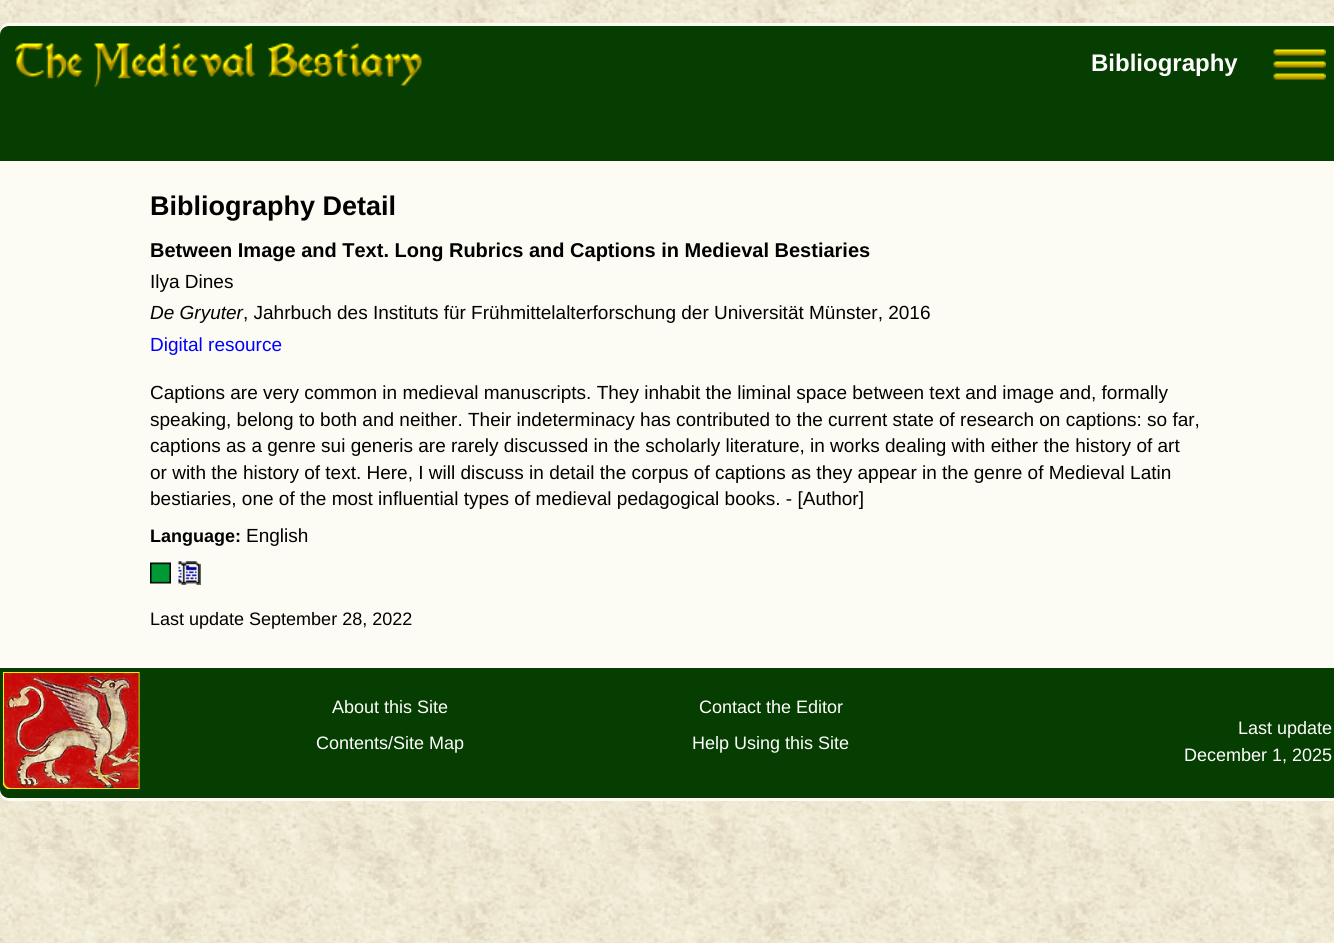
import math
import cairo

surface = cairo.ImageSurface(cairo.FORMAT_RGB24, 1334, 943)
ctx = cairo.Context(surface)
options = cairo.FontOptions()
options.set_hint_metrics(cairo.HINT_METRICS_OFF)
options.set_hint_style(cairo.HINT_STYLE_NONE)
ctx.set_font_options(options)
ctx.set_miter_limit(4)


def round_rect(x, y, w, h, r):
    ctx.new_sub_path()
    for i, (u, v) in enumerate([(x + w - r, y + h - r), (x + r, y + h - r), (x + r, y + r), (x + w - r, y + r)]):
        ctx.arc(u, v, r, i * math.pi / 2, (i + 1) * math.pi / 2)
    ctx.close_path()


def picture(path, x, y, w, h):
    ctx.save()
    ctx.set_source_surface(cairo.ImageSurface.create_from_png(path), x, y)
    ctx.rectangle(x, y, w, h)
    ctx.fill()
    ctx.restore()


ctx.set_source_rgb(1, 1, 1)
ctx.paint()
picture("img1.png", 0, 0, 1334, 943)
ctx.set_source_rgb(0.988, 0.988, 0.957)
round_rect(0, 23, 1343, 778, 9)
ctx.fill()
ctx.set_source_rgb(0.02, 0.243, 0)
ctx.new_path()
ctx.move_to(9, 26)
ctx.line_to(1334, 26)
ctx.curve_to(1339, 26, 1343, 30, 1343, 35)
ctx.line_to(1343, 161)
ctx.line_to(0, 161)
ctx.line_to(0, 35)
ctx.curve_to(0, 30, 4, 26, 9, 26)
ctx.close_path()
ctx.fill()
picture("img2.png", 15, 43, 407, 44)
ctx.select_font_face("Liberation Sans", cairo.FONT_SLANT_NORMAL, cairo.FONT_WEIGHT_BOLD)
ctx.set_font_size(24)
ctx.set_source_rgb(1, 1, 1)
ctx.move_to(1091, 71)
ctx.show_text("Bibliography")
picture("img3.png", 1273, 49, 53, 31)
ctx.set_font_size(27)
ctx.set_source_rgb(0, 0, 0)
ctx.move_to(150, 215)
ctx.show_text("Bibliography Detail")
ctx.set_font_size(20)
ctx.move_to(150, 257)
ctx.show_text("Between Image and Text. Long Rubrics and Captions in Medieval Bestiaries")
ctx.select_font_face("Liberation Sans")
ctx.set_font_size(19)
ctx.move_to(150, 288)
ctx.show_text("Ilya Dines")
ctx.select_font_face("Liberation Sans", cairo.FONT_SLANT_ITALIC)
ctx.move_to(150, 319)
ctx.show_text("De Gryuter")
ctx.select_font_face("Liberation Sans")
ctx.move_to(243, 319)
ctx.show_text(", Jahrbuch des Instituts für Frühmittelalterforschung der Universität Münster, 2016")
ctx.set_source_rgb(0, 0, 1)
ctx.move_to(150, 351)
ctx.show_text("Digital resource")
ctx.set_source_rgb(0, 0, 0)
ctx.move_to(150, 399)
ctx.show_text("Captions are very common in medieval manuscripts. They inhabit the liminal space between text and image and, formally")
ctx.move_to(150, 426)
ctx.show_text("speaking, belong to both and neither. Their indeterminacy has contributed to the current state of research on captions: so far,")
ctx.move_to(150, 452)
ctx.show_text("captions as a genre sui generis are rarely discussed in the scholarly literature, in works dealing with either the history of art")
ctx.move_to(150, 479)
ctx.show_text("or with the history of text. Here, I will discuss in detail the corpus of captions as they appear in the genre of Medieval Latin")
ctx.move_to(150, 505)
ctx.show_text("bestiaries, one of the most influential types of medieval pedagogical books. - [Author]")
ctx.select_font_face("Liberation Sans", cairo.FONT_SLANT_NORMAL, cairo.FONT_WEIGHT_BOLD)
ctx.set_font_size(18)
ctx.move_to(150, 542)
ctx.show_text("Language:")
ctx.select_font_face("Liberation Sans")
ctx.set_font_size(19)
ctx.move_to(246, 542)
ctx.show_text("English")
picture("img4.png", 150, 562, 21, 22)
picture("img5.png", 177, 561, 24, 24)
ctx.set_font_size(18)
ctx.move_to(150, 625)
ctx.show_text("Last update September 28, 2022")
ctx.set_source_rgb(0.02, 0.243, 0)
ctx.new_path()
ctx.move_to(0, 668)
ctx.line_to(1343, 668)
ctx.line_to(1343, 789)
ctx.curve_to(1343, 794, 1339, 798, 1334, 798)
ctx.line_to(9, 798)
ctx.curve_to(4, 798, 0, 794, 0, 789)
ctx.close_path()
ctx.fill()
picture("img6.png", 3, 672, 137, 117)
ctx.set_source_rgb(1, 1, 1)
ctx.move_to(332, 713)
ctx.show_text("About this Site")
ctx.move_to(316, 749)
ctx.show_text("Contents/Site Map")
ctx.move_to(699, 713)
ctx.show_text("Contact the Editor")
ctx.move_to(692, 749)
ctx.show_text("Help Using this Site")
ctx.move_to(1238, 734)
ctx.show_text("Last update")
ctx.move_to(1184, 761)
ctx.show_text("December 1, 2025")
surface.write_to_png("page.png")
